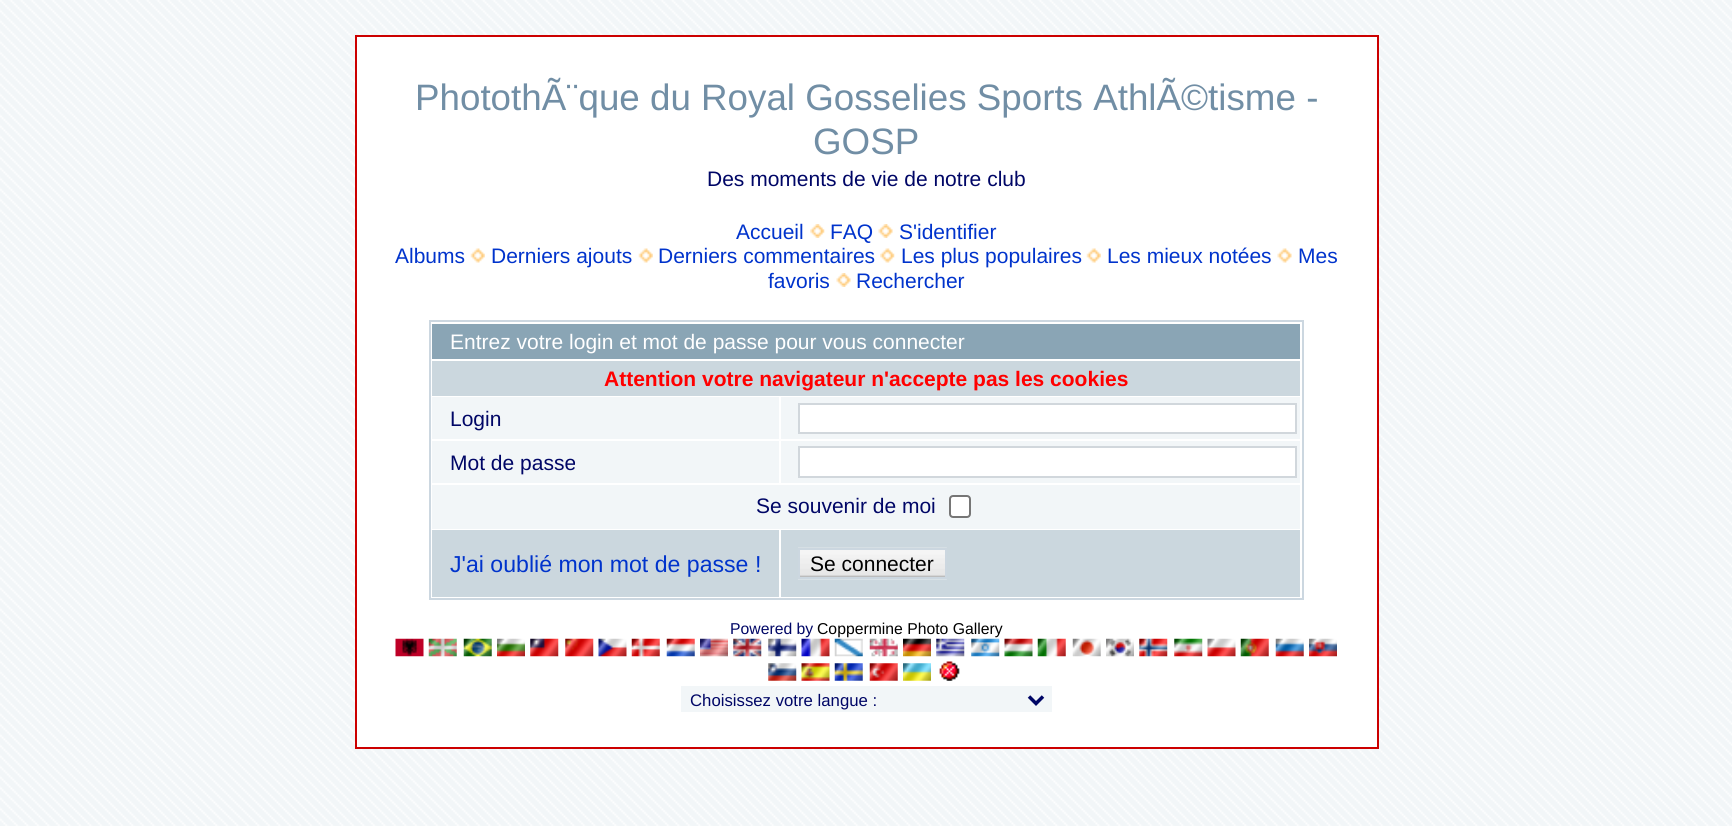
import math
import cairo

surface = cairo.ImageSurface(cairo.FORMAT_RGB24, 1732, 826)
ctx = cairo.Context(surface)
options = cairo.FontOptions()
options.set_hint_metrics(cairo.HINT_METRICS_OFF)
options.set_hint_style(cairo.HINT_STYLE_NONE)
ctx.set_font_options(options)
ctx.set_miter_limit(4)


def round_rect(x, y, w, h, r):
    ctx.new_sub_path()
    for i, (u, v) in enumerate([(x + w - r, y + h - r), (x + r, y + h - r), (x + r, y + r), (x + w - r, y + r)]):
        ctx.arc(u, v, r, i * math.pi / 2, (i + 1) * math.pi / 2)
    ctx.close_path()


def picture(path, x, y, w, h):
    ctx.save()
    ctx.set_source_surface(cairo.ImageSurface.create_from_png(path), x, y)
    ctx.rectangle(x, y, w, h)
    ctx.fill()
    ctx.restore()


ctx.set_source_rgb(0.949, 0.961, 0.969)
ctx.paint()
picture("img1.png", 0, 0, 1732, 826)
ctx.set_source_rgb(1, 1, 1)
ctx.rectangle(356, 36, 1022, 712)
ctx.fill_preserve()
ctx.set_source_rgb(0.8, 0, 0)
ctx.stroke()
ctx.select_font_face("Liberation Sans")
ctx.set_font_size(36.75)
ctx.set_source_rgb(0.443, 0.557, 0.647)
ctx.move_to(415, 110)
ctx.show_text("PhotothÃ¨que du Royal Gosselies Sports AthlÃ©tisme -")
ctx.move_to(813, 154)
ctx.show_text("GOSP")
ctx.set_font_size(21)
ctx.set_source_rgb(0, 0.024, 0.4)
ctx.move_to(707, 186)
ctx.show_text("Des moments de vie de notre club")
ctx.set_source_rgb(0, 0.2, 0.8)
ctx.move_to(736, 239)
ctx.show_text("Accueil")
picture("img2.png", 810, 224, 15, 14)
ctx.move_to(830, 239)
ctx.show_text("FAQ")
picture("img3.png", 878, 224, 15, 14)
ctx.move_to(899, 239)
ctx.show_text("S'identifier")
ctx.move_to(395, 263)
ctx.show_text("Albums")
picture("img4.png", 470, 248, 15, 15)
ctx.move_to(491, 263)
ctx.show_text("Derniers ajouts")
picture("img4.png", 638, 248, 15, 15)
ctx.move_to(658, 263)
ctx.show_text("Derniers commentaires")
picture("img5.png", 880, 248, 15, 15)
ctx.move_to(901, 263)
ctx.show_text("Les plus populaires")
picture("img6.png", 1086, 248, 15, 15)
ctx.move_to(1107, 263)
ctx.show_text("Les mieux notées")
picture("img7.png", 1277, 248, 15, 15)
ctx.move_to(1298, 263)
ctx.show_text("Mes")
ctx.move_to(768, 288)
ctx.show_text("favoris")
picture("img8.png", 836, 273, 15, 14)
ctx.move_to(856, 288)
ctx.show_text("Rechercher")
ctx.rectangle(430, 321, 873, 278)
ctx.set_source_rgb(0.8, 0.843, 0.878)
ctx.stroke()
ctx.set_source_rgb(0.541, 0.647, 0.71)
ctx.rectangle(432, 324, 868, 35)
ctx.fill()
ctx.set_source_rgb(1, 1, 1)
ctx.move_to(450, 349)
ctx.show_text("Entrez votre login et mot de passe pour vous connecter")
ctx.set_source_rgb(0.796, 0.843, 0.871)
ctx.rectangle(432, 361, 868, 35)
ctx.fill()
ctx.select_font_face("Liberation Sans", cairo.FONT_SLANT_NORMAL, cairo.FONT_WEIGHT_BOLD)
ctx.set_source_rgb(1, 0, 0)
ctx.move_to(604, 386)
ctx.show_text("Attention votre navigateur n'accepte pas les cookies")
ctx.set_source_rgb(0.949, 0.961, 0.969)
ctx.rectangle(432, 397, 347, 42)
ctx.fill()
ctx.select_font_face("Liberation Sans")
ctx.set_source_rgb(0, 0.024, 0.4)
ctx.move_to(450, 426)
ctx.show_text("Login")
ctx.set_source_rgb(0.949, 0.961, 0.969)
ctx.rectangle(781, 397, 519, 42)
ctx.fill()
ctx.set_source_rgb(1, 1, 1)
ctx.rectangle(799, 404, 497, 29)
ctx.fill_preserve()
ctx.set_source_rgb(0.82, 0.843, 0.863)
ctx.stroke()
ctx.set_source_rgb(0.949, 0.961, 0.969)
ctx.rectangle(432, 441, 347, 42)
ctx.fill()
ctx.set_source_rgb(0, 0.024, 0.4)
ctx.move_to(450, 470)
ctx.show_text("Mot de passe")
ctx.set_source_rgb(0.949, 0.961, 0.969)
ctx.rectangle(781, 441, 519, 42)
ctx.fill()
ctx.set_source_rgb(1, 1, 1)
ctx.rectangle(799, 447, 497, 30)
ctx.fill_preserve()
ctx.set_source_rgb(0.82, 0.843, 0.863)
ctx.stroke()
ctx.set_source_rgb(0.949, 0.961, 0.969)
ctx.rectangle(432, 485, 868, 44)
ctx.fill()
ctx.set_source_rgb(0, 0.024, 0.4)
ctx.move_to(756, 513)
ctx.show_text("Se souvenir de moi")
ctx.set_source_rgb(1, 1, 1)
round_rect(950, 496, 20, 21, 3)
ctx.fill_preserve()
ctx.set_source_rgb(0.463, 0.463, 0.463)
ctx.stroke()
ctx.set_source_rgb(0.796, 0.843, 0.871)
ctx.rectangle(432, 530, 347, 67)
ctx.fill()
ctx.set_font_size(23.1)
ctx.set_source_rgb(0, 0.2, 0.8)
ctx.move_to(450, 572)
ctx.show_text("J'ai oublié mon mot de passe !")
ctx.set_source_rgb(0.796, 0.843, 0.871)
ctx.rectangle(781, 530, 519, 67)
ctx.fill()
picture("img9.png", 798, 547, 149, 33)
ctx.rectangle(799, 549, 147, 29)
ctx.set_source_rgb(0.8, 0.843, 0.878)
ctx.stroke()
ctx.set_font_size(21)
ctx.set_source_rgb(0, 0, 0)
ctx.move_to(810, 571)
ctx.show_text("Se connecter")
ctx.set_font_size(15.75)
ctx.set_source_rgb(0, 0.024, 0.4)
ctx.move_to(730, 634)
ctx.show_text("Powered by")
ctx.set_source_rgb(0, 0, 0)
ctx.move_to(817, 634)
ctx.show_text("Coppermine Photo Gallery")
picture("img10.png", 395, 638, 29, 19)
picture("img11.png", 428, 638, 29, 19)
picture("img12.png", 463, 638, 29, 19)
picture("img13.png", 497, 638, 28, 19)
picture("img14.png", 530, 638, 29, 19)
picture("img15.png", 565, 638, 29, 19)
picture("img16.png", 598, 638, 29, 19)
picture("img17.png", 631, 638, 29, 19)
picture("img18.png", 666, 638, 29, 19)
picture("img19.png", 700, 638, 28, 19)
picture("img20.png", 733, 638, 29, 19)
picture("img21.png", 768, 638, 29, 19)
picture("img22.png", 801, 638, 29, 19)
picture("img23.png", 834, 638, 29, 19)
picture("img24.png", 869, 638, 29, 19)
picture("img25.png", 903, 638, 28, 19)
picture("img26.png", 936, 638, 29, 19)
picture("img27.png", 971, 638, 29, 19)
picture("img28.png", 1004, 638, 29, 19)
picture("img29.png", 1037, 638, 29, 19)
picture("img30.png", 1072, 638, 29, 19)
picture("img31.png", 1106, 638, 28, 19)
picture("img32.png", 1139, 638, 29, 19)
picture("img33.png", 1174, 638, 29, 19)
picture("img34.png", 1207, 638, 29, 19)
picture("img35.png", 1240, 638, 29, 19)
picture("img36.png", 1275, 638, 29, 19)
picture("img37.png", 1309, 638, 28, 19)
picture("img38.png", 768, 663, 29, 18)
picture("img39.png", 801, 663, 29, 18)
picture("img40.png", 834, 663, 29, 18)
picture("img41.png", 869, 663, 29, 18)
picture("img42.png", 903, 663, 28, 18)
picture("img43.png", 939, 661, 21, 20)
ctx.set_source_rgb(0.949, 0.961, 0.969)
ctx.rectangle(681, 686, 371, 26)
ctx.fill()
ctx.new_path()
ctx.move_to(1029, 696.5)
ctx.line_to(1036, 703.5)
ctx.line_to(1043, 696.5)
ctx.set_source_rgb(0, 0.024, 0.4)
ctx.set_line_width(3.5)
ctx.stroke()
ctx.set_font_size(16.75)
ctx.move_to(690, 706)
ctx.show_text("Choisissez votre langue :")
surface.write_to_png("page.png")
